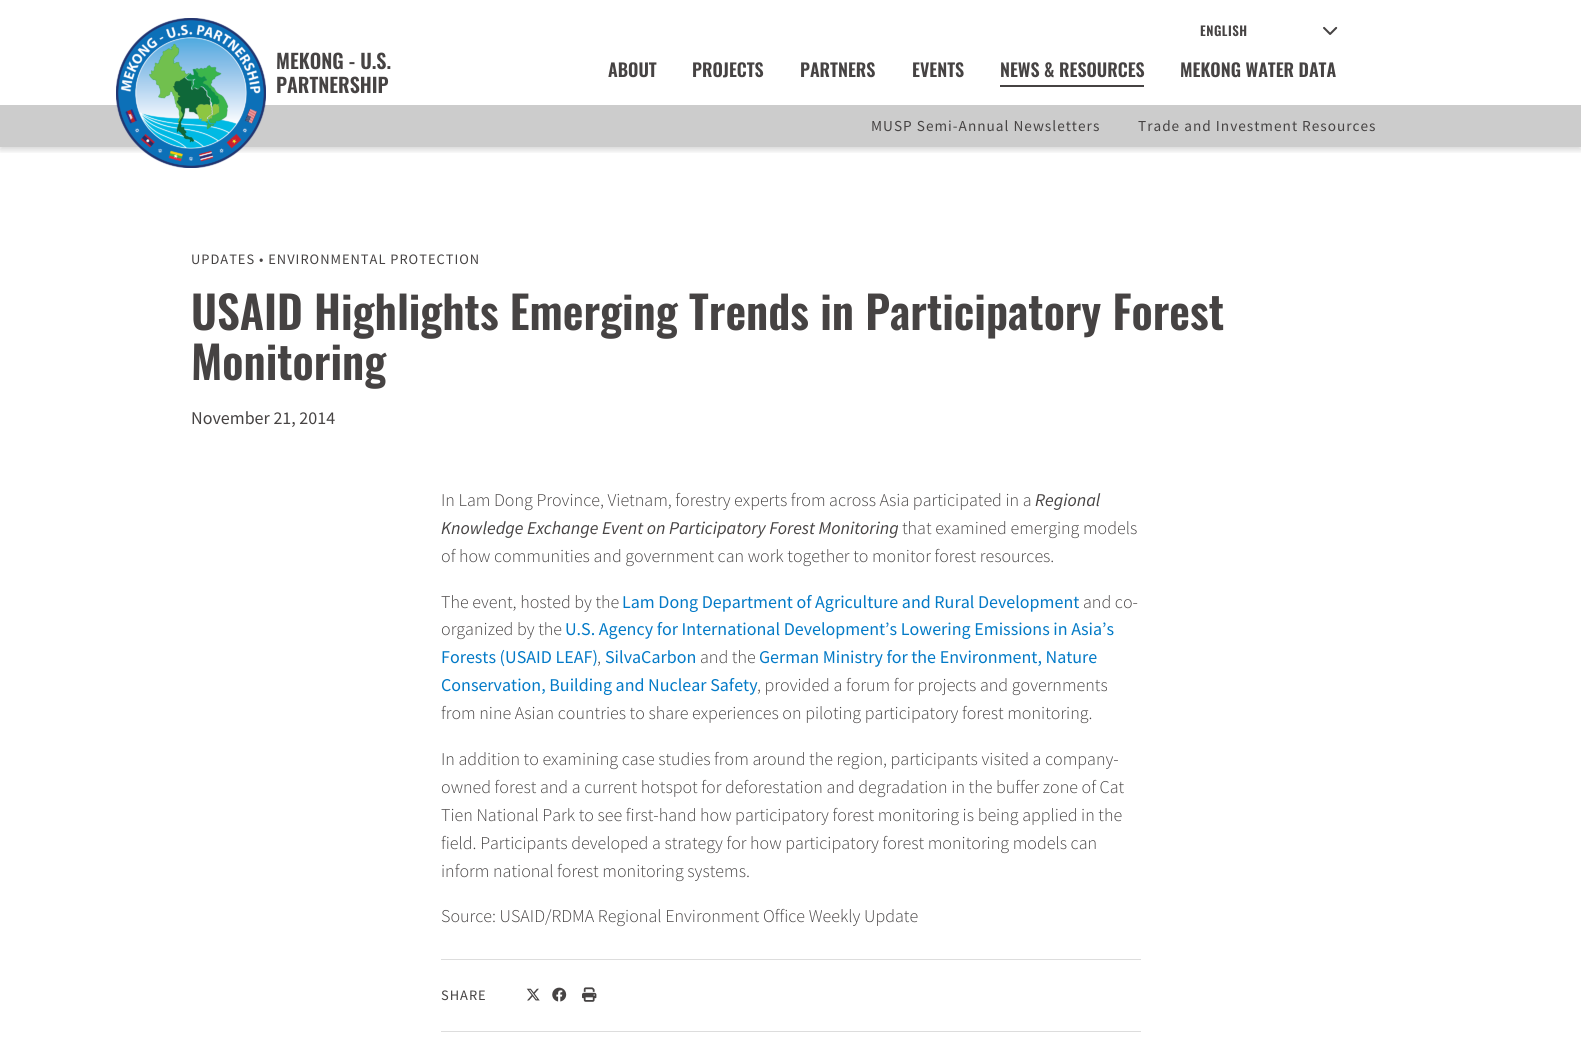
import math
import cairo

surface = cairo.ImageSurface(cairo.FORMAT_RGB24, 1581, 1041)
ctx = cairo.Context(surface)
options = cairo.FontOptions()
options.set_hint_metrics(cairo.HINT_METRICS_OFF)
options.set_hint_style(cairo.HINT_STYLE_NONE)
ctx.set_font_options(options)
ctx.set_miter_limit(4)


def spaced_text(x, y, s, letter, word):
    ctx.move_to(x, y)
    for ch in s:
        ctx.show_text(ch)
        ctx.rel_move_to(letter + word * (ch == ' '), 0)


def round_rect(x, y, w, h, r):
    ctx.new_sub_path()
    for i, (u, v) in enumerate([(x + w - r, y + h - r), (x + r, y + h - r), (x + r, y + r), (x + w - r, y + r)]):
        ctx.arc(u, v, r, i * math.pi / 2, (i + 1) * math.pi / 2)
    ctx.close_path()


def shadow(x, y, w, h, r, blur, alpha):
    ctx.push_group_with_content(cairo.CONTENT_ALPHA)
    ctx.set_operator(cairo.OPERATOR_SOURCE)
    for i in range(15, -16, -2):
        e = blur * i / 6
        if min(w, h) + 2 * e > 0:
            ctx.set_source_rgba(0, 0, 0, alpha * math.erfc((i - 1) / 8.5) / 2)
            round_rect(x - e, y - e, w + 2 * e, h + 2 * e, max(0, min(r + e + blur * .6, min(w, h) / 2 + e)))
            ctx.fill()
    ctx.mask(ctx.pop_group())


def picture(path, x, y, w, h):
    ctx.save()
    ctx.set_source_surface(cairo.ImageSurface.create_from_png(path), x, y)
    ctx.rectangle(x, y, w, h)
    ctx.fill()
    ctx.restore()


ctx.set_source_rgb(1, 1, 1)
ctx.paint()
ctx.save()
ctx.rectangle(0, 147, 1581, 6)
ctx.clip()
ctx.set_source_rgb(0, 0, 0)
shadow(0, 3, 1581, 147, 0, 3, 0.16)
ctx.restore()
ctx.set_source_rgb(0.8, 0.8, 0.8)
ctx.rectangle(0, 105, 1581, 42)
ctx.fill()
picture("img1.png", 116, 18, 150, 150)
ctx.select_font_face("Oswald SemiBold")
ctx.set_font_size(20)
ctx.set_source_rgb(0.275, 0.263, 0.263)
ctx.move_to(276, 69)
ctx.show_text("MEKONG - U.S.")
ctx.move_to(276, 93)
ctx.show_text("PARTNERSHIP")
ctx.set_font_size(13)
spaced_text(1200, 36, "ENGLISH", 0.5, 0)
picture("img2.png", 1323, 26, 15, 9)
ctx.set_font_size(18)
ctx.move_to(608, 77)
ctx.show_text("ABOUT")
ctx.move_to(692, 77)
ctx.show_text("PROJECTS")
ctx.move_to(800, 77)
ctx.show_text("PARTNERS")
ctx.move_to(912, 77)
ctx.show_text("EVENTS")
ctx.move_to(1000, 77)
ctx.show_text("NEWS & RESOURCES")
ctx.rectangle(1000, 85, 144, 2)
ctx.fill()
ctx.move_to(1180, 77)
ctx.show_text("MEKONG WATER DATA")
ctx.select_font_face("Source Sans Pro")
ctx.set_font_size(15.25)
spaced_text(871, 131, "MUSP Semi-Annual Newsletters", 1, 0)
spaced_text(1138, 131, "Trade and Investment Resources", 1, 0)
ctx.set_font_size(14.4)
spaced_text(191, 264, "UPDATES • ENVIRONMENTAL PROTECTION", 1, 0)
ctx.select_font_face("Oswald SemiBold")
ctx.set_font_size(45)
ctx.move_to(191, 330)
ctx.show_text("USAID Highlights Emerging Trends in Participatory Forest")
ctx.move_to(191, 380)
ctx.show_text("Monitoring")
ctx.select_font_face("Source Sans Pro")
ctx.set_font_size(18)
ctx.move_to(191, 424)
ctx.show_text("November 21, 2014")
ctx.select_font_face("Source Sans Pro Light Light")
ctx.move_to(441, 506)
ctx.show_text("In Lam Dong Province, Vietnam, forestry experts from across Asia participated in a")
ctx.select_font_face("Source Sans Pro", cairo.FONT_SLANT_ITALIC)
ctx.move_to(1035, 506)
ctx.show_text("Regional")
ctx.move_to(441, 534)
ctx.show_text("Knowledge Exchange Event on Participatory Forest Monitoring")
ctx.select_font_face("Source Sans Pro Light Light")
ctx.move_to(902, 534)
ctx.show_text("that examined emerging models")
ctx.move_to(441, 562)
ctx.show_text("of how communities and government can work together to monitor forest resources.")
ctx.move_to(441, 608)
ctx.show_text("The event, hosted by the")
ctx.select_font_face("Source Sans Pro")
ctx.set_source_rgb(0.012, 0.478, 0.78)
ctx.move_to(622, 608)
ctx.show_text("Lam Dong Department of Agriculture and Rural Development")
ctx.select_font_face("Source Sans Pro Light Light")
ctx.set_source_rgb(0.275, 0.263, 0.263)
ctx.move_to(1083, 608)
ctx.show_text("and co-")
ctx.move_to(441, 635)
ctx.show_text("organized by the")
ctx.select_font_face("Source Sans Pro")
ctx.set_source_rgb(0.012, 0.478, 0.78)
ctx.move_to(565, 635)
ctx.show_text("U.S. Agency for International Development’s Lowering Emissions in Asia’s")
ctx.move_to(441, 663)
ctx.show_text("Forests (USAID LEAF)")
ctx.select_font_face("Source Sans Pro Light Light")
ctx.set_source_rgb(0.275, 0.263, 0.263)
ctx.move_to(597, 663)
ctx.show_text(",")
ctx.select_font_face("Source Sans Pro")
ctx.set_source_rgb(0.012, 0.478, 0.78)
ctx.move_to(605, 663)
ctx.show_text("SilvaCarbon")
ctx.select_font_face("Source Sans Pro Light Light")
ctx.set_source_rgb(0.275, 0.263, 0.263)
ctx.move_to(700, 663)
ctx.show_text("and the")
ctx.select_font_face("Source Sans Pro")
ctx.set_source_rgb(0.012, 0.478, 0.78)
ctx.move_to(759, 663)
ctx.show_text("German Ministry for the Environment, Nature")
ctx.move_to(441, 691)
ctx.show_text("Conservation, Building and Nuclear Safety")
ctx.select_font_face("Source Sans Pro Light Light")
ctx.set_source_rgb(0.275, 0.263, 0.263)
ctx.move_to(757, 691)
ctx.show_text(", provided a forum for projects and governments")
ctx.move_to(441, 719)
ctx.show_text("from nine Asian countries to share experiences on piloting participatory forest monitoring.")
ctx.move_to(441, 765)
ctx.show_text("In addition to examining case studies from around the region, participants visited a company-")
ctx.move_to(441, 793)
ctx.show_text("owned forest and a current hotspot for deforestation and degradation in the buffer zone of Cat")
ctx.move_to(441, 821)
ctx.show_text("Tien National Park to see first-hand how participatory forest monitoring is being applied in the")
ctx.move_to(441, 849)
ctx.show_text("field. Participants developed a strategy for how participatory forest monitoring models can")
ctx.move_to(441, 877)
ctx.show_text("inform national forest monitoring systems.")
ctx.move_to(441, 922)
ctx.show_text("Source: USAID/RDMA Regional Environment Office Weekly Update")
ctx.set_source_rgb(0.867, 0.867, 0.867)
ctx.rectangle(441, 959, 700, 1)
ctx.fill()
ctx.rectangle(441, 1031, 700, 1)
ctx.fill()
ctx.select_font_face("Source Sans Pro")
ctx.set_font_size(14.4)
ctx.set_source_rgb(0.275, 0.263, 0.263)
spaced_text(441, 1000, "SHARE", 1, 0)
picture("img3.png", 526, 988, 14, 13)
picture("img4.png", 552, 987, 15, 15)
picture("img5.png", 582, 987, 15, 15)
surface.write_to_png("page.png")
